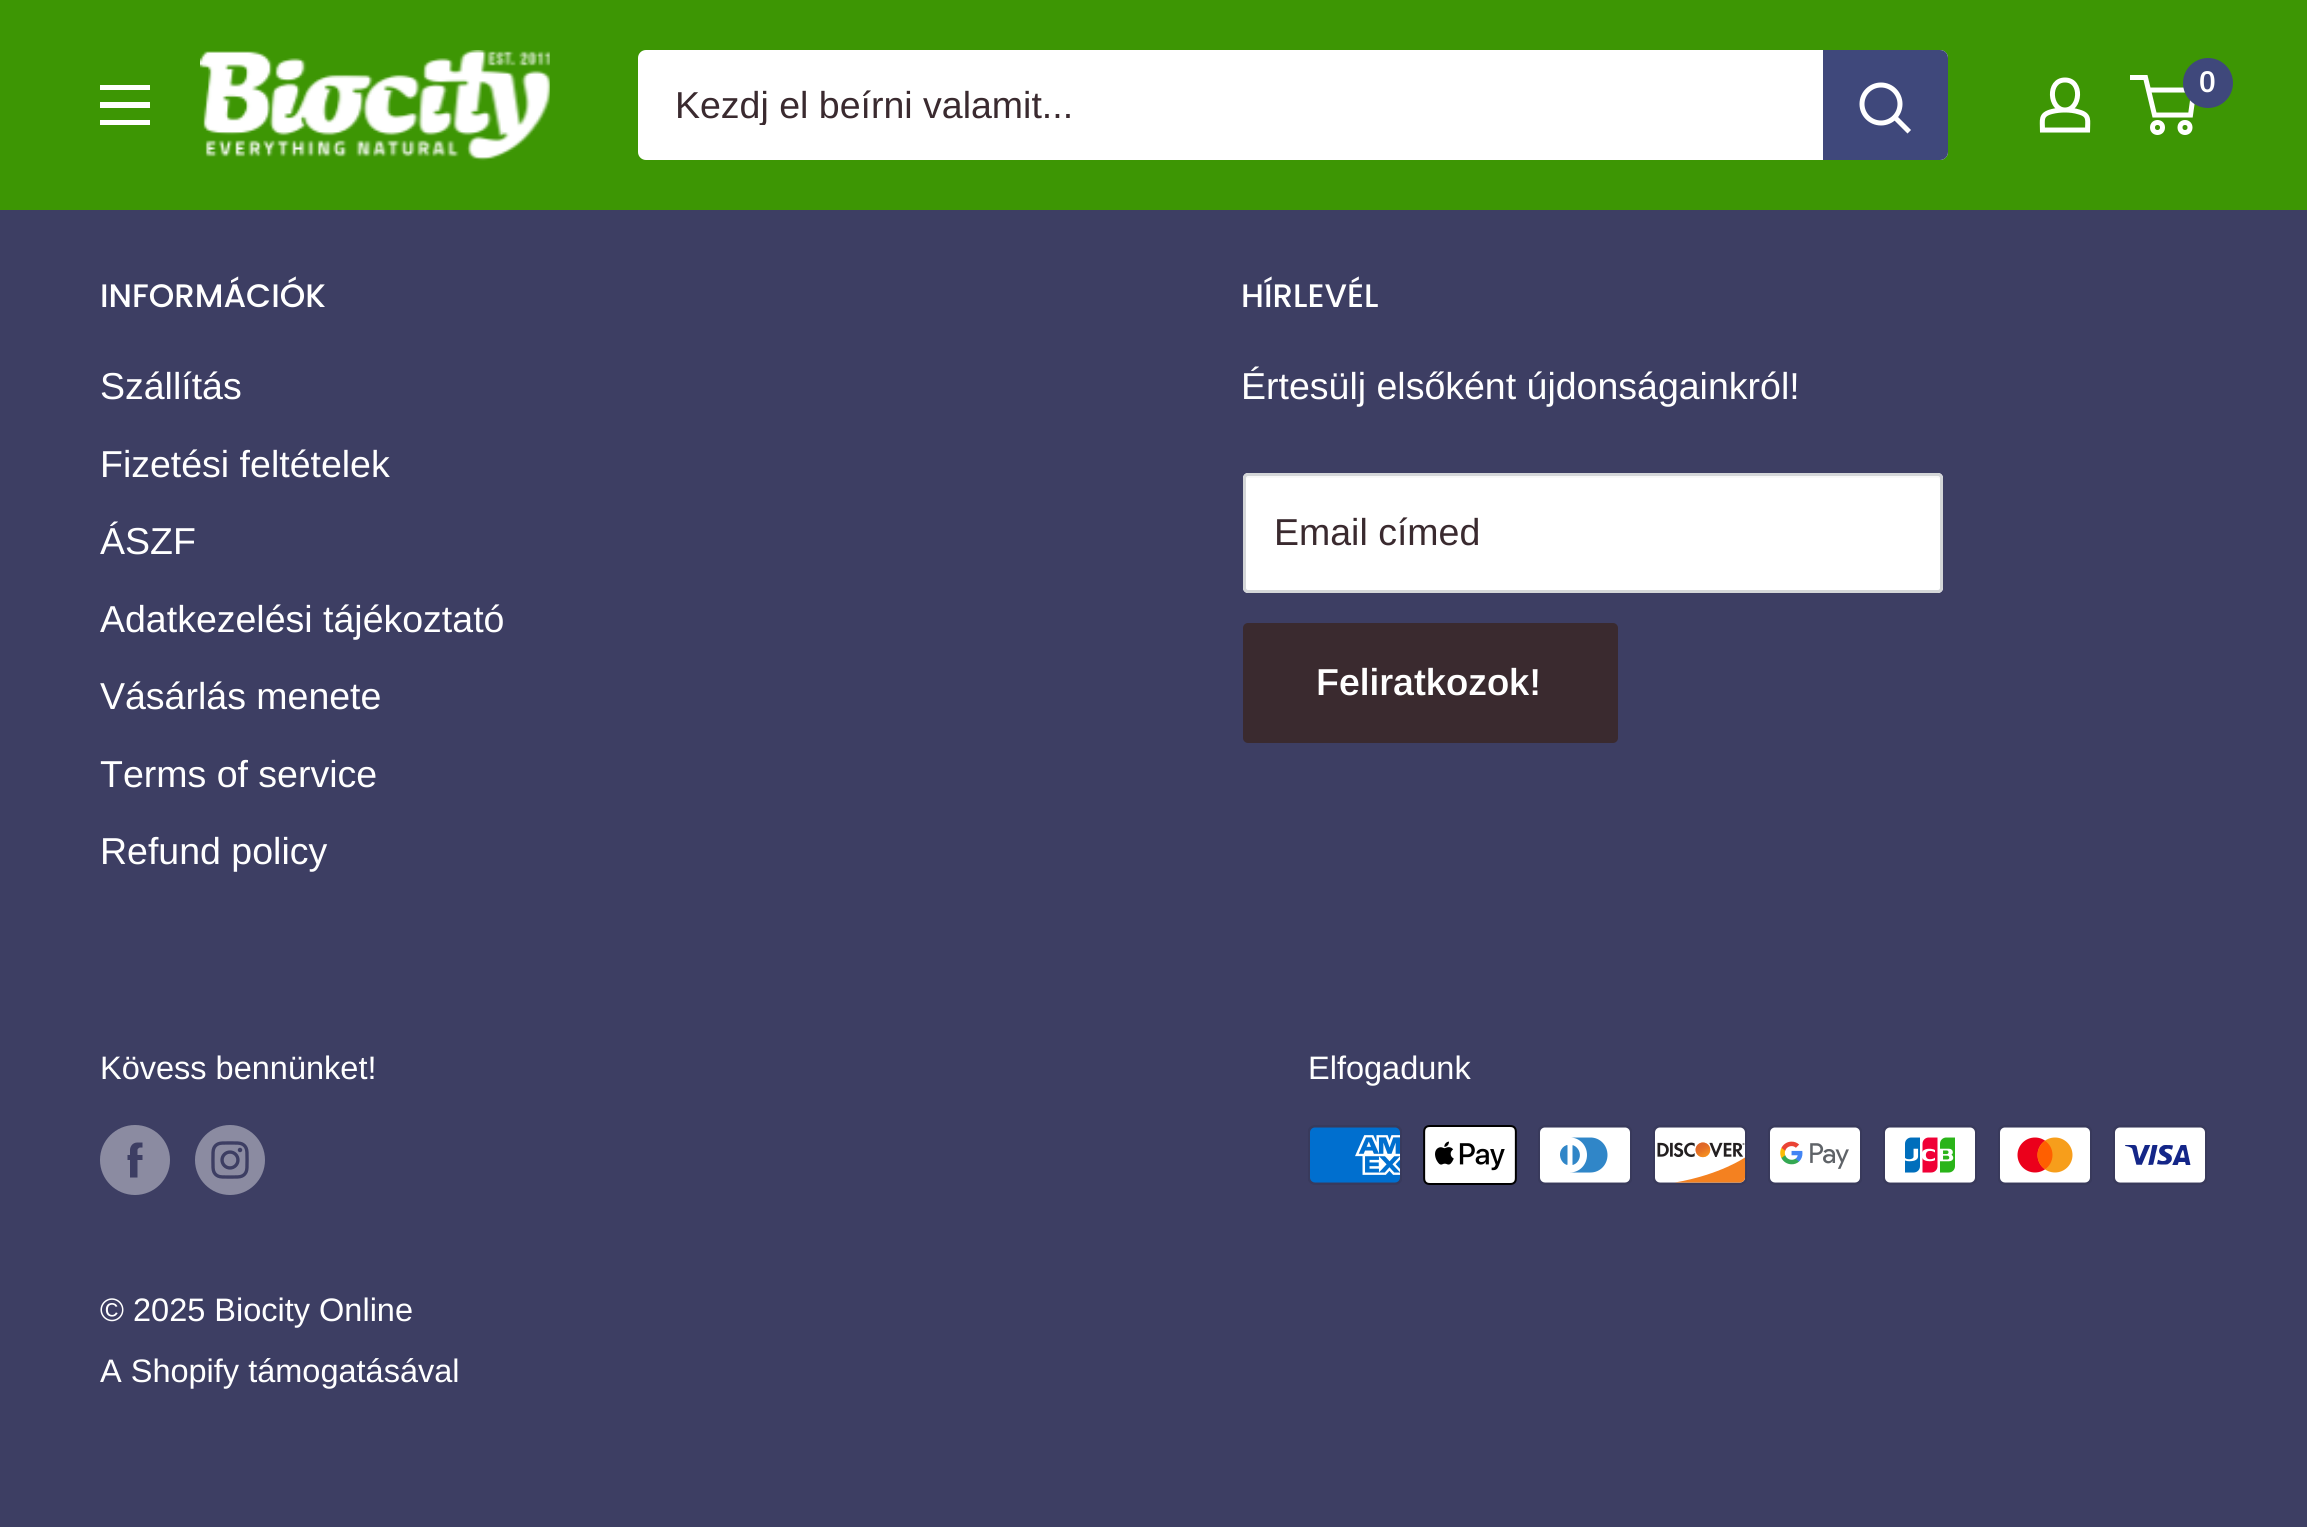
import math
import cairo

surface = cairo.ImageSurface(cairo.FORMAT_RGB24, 2307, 1527)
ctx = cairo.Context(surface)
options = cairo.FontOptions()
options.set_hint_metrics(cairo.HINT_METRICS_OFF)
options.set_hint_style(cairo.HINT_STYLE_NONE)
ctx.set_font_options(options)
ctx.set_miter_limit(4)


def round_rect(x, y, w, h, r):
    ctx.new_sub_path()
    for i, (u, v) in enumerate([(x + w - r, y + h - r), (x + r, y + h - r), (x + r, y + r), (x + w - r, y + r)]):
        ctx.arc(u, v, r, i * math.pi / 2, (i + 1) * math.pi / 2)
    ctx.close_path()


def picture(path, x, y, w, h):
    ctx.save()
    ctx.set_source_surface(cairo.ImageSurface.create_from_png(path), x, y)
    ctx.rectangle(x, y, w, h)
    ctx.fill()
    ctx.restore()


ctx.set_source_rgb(0.239, 0.243, 0.388)
ctx.paint()
ctx.set_source_rgb(0.239, 0.588, 0.016)
ctx.rectangle(0, 0, 2307, 210)
ctx.fill()
picture("img1.png", 200, 50, 350, 111)
ctx.new_path()
ctx.move_to(2065, 110)
ctx.curve_to(2069.5, 110, 2074.5, 110.5, 2079, 112)
ctx.curve_to(2090, 115, 2087.5, 120.5, 2087.5, 130)
ctx.line_to(2042.5, 130)
ctx.curve_to(2042.5, 120, 2040, 114.5, 2052, 111.5)
ctx.curve_to(2056, 110.5, 2060.5, 110, 2065, 110)
ctx.close_path()
ctx.move_to(2065, 110)
ctx.curve_to(2049.5, 110, 2047, 80, 2065, 80)
ctx.curve_to(2083, 80, 2080.5, 110, 2065, 110)
ctx.close_path()
ctx.set_source_rgb(1, 1, 1)
ctx.set_line_width(5)
ctx.stroke()
ctx.arc(2157.5, 127.5, 5, 0, 2 * math.pi)
ctx.stroke()
ctx.arc(2185, 127.5, 5, 0, 2 * math.pi)
ctx.stroke()
ctx.new_path()
ctx.move_to(2148.5, 90)
ctx.line_to(2194, 90)
ctx.line_to(2190.5, 115)
ctx.line_to(2154.5, 115)
ctx.line_to(2145.5, 77.5)
ctx.line_to(2130, 77.5)
ctx.stroke()
ctx.set_source_rgb(0.247, 0.282, 0.482)
ctx.arc(2208, 83, 25, 0, 2 * math.pi)
ctx.fill()
ctx.select_font_face("Arimo SemiBold")
ctx.set_font_size(30)
ctx.set_source_rgb(1, 1, 1)
ctx.move_to(2199, 92)
ctx.show_text("0")
ctx.set_fill_rule(cairo.FILL_RULE_EVEN_ODD)
ctx.new_path()
ctx.move_to(100, 120)
ctx.line_to(150, 120)
ctx.line_to(150, 125)
ctx.line_to(100, 125)
ctx.close_path()
ctx.move_to(100, 85)
ctx.line_to(150, 85)
ctx.line_to(150, 90)
ctx.line_to(100, 90)
ctx.close_path()
ctx.move_to(100, 102)
ctx.line_to(150, 102)
ctx.line_to(150, 108)
ctx.line_to(100, 108)
ctx.close_path()
ctx.fill()
round_rect(638, 50, 1310, 110, 8)
ctx.fill()
ctx.save()
ctx.set_fill_rule(cairo.FILL_RULE_WINDING)
ctx.rectangle(675, 83, 1110, 42)
ctx.clip()
ctx.select_font_face("Arimo")
ctx.set_font_size(37.5)
ctx.set_source_rgb(0.227, 0.165, 0.184)
ctx.move_to(675, 118)
ctx.show_text("Kezdj el beírni valamit...")
ctx.restore()
ctx.set_source_rgb(0.247, 0.282, 0.482)
ctx.new_path()
ctx.move_to(1823, 50)
ctx.line_to(1940, 50)
ctx.curve_to(1944.5, 50, 1948, 53.5, 1948, 58)
ctx.line_to(1948, 152)
ctx.curve_to(1948, 156.5, 1944.5, 160, 1940, 160)
ctx.line_to(1823, 160)
ctx.close_path()
ctx.fill()
ctx.new_path()
ctx.move_to(1907.5, 130)
ctx.line_to(1895, 117.5)
ctx.set_source_rgb(1, 1, 1)
ctx.set_line_cap(cairo.LINE_CAP_SQUARE)
ctx.stroke()
ctx.arc(1881, 104, 19, 0, 2 * math.pi)
ctx.set_line_cap(cairo.LINE_CAP_BUTT)
ctx.stroke()
ctx.select_font_face("Poppins Medium")
ctx.set_font_size(32.5)
ctx.move_to(100, 307)
ctx.show_text("INFORMÁCIÓK")
ctx.select_font_face("Arimo")
ctx.set_font_size(37.5)
ctx.move_to(100, 399)
ctx.show_text("Szállítás")
ctx.move_to(100, 477)
ctx.show_text("Fizetési feltételek")
ctx.move_to(100, 554)
ctx.show_text("ÁSZF")
ctx.move_to(100, 632)
ctx.show_text("Adatkezelési tájékoztató")
ctx.move_to(100, 709)
ctx.show_text("Vásárlás menete")
ctx.move_to(100, 787)
ctx.show_text("Terms of service")
ctx.move_to(100, 864)
ctx.show_text("Refund policy")
ctx.select_font_face("Poppins Medium")
ctx.set_font_size(32.5)
ctx.move_to(1241, 307)
ctx.show_text("HÍRLEVÉL")
ctx.select_font_face("Arimo")
ctx.set_font_size(37.5)
ctx.move_to(1241, 399)
ctx.show_text("Értesülj elsőként újdonságainkról!")
round_rect(1243, 473, 700, 120, 5)
ctx.fill()
ctx.set_source_rgb(0.973, 0.973, 0.973)
ctx.set_fill_rule(cairo.FILL_RULE_WINDING)
ctx.new_path()
ctx.move_to(1248, 478)
ctx.line_to(1938, 478)
ctx.curve_to(1939, 478, 1940, 479, 1940, 480)
ctx.curve_to(1940, 478, 1940, 475, 1938, 475)
ctx.line_to(1248, 475)
ctx.line_to(1245, 476)
ctx.line_to(1245, 480)
ctx.curve_to(1245, 479, 1246, 478, 1248, 478)
ctx.close_path()
ctx.fill()
round_rect(1244.5, 474.5, 697, 117, 3.5)
ctx.set_source_rgb(0.831, 0.839, 0.847)
ctx.set_line_width(3)
ctx.stroke()
ctx.set_source_rgb(0.227, 0.165, 0.184)
ctx.move_to(1274, 545)
ctx.show_text("Email címed")
round_rect(1243, 623, 375, 120, 5)
ctx.fill()
ctx.select_font_face("Arimo SemiBold")
ctx.set_source_rgb(1, 1, 1)
ctx.move_to(1316, 695)
ctx.show_text("Feliratkozok!")
ctx.select_font_face("Arimo")
ctx.set_font_size(32.5)
ctx.move_to(100, 1079)
ctx.show_text("Kövess bennünket!")
picture("img2.png", 100, 1125, 70, 70)
picture("img3.png", 195, 1125, 70, 70)
ctx.move_to(1308, 1079)
ctx.show_text("Elfogadunk")
picture("img4.png", 1308, 1125, 94, 60)
picture("img5.png", 1423, 1125, 94, 60)
picture("img6.png", 1538, 1125, 94, 60)
picture("img7.png", 1653, 1125, 94, 60)
picture("img8.png", 1768, 1125, 94, 60)
picture("img9.png", 1883, 1125, 94, 60)
picture("img10.png", 1998, 1125, 94, 60)
picture("img11.png", 2113, 1125, 94, 60)
ctx.move_to(100, 1321)
ctx.show_text("© 2025 Biocity Online")
ctx.move_to(100, 1382)
ctx.show_text("A Shopify támogatásával")
surface.write_to_png("page.png")
